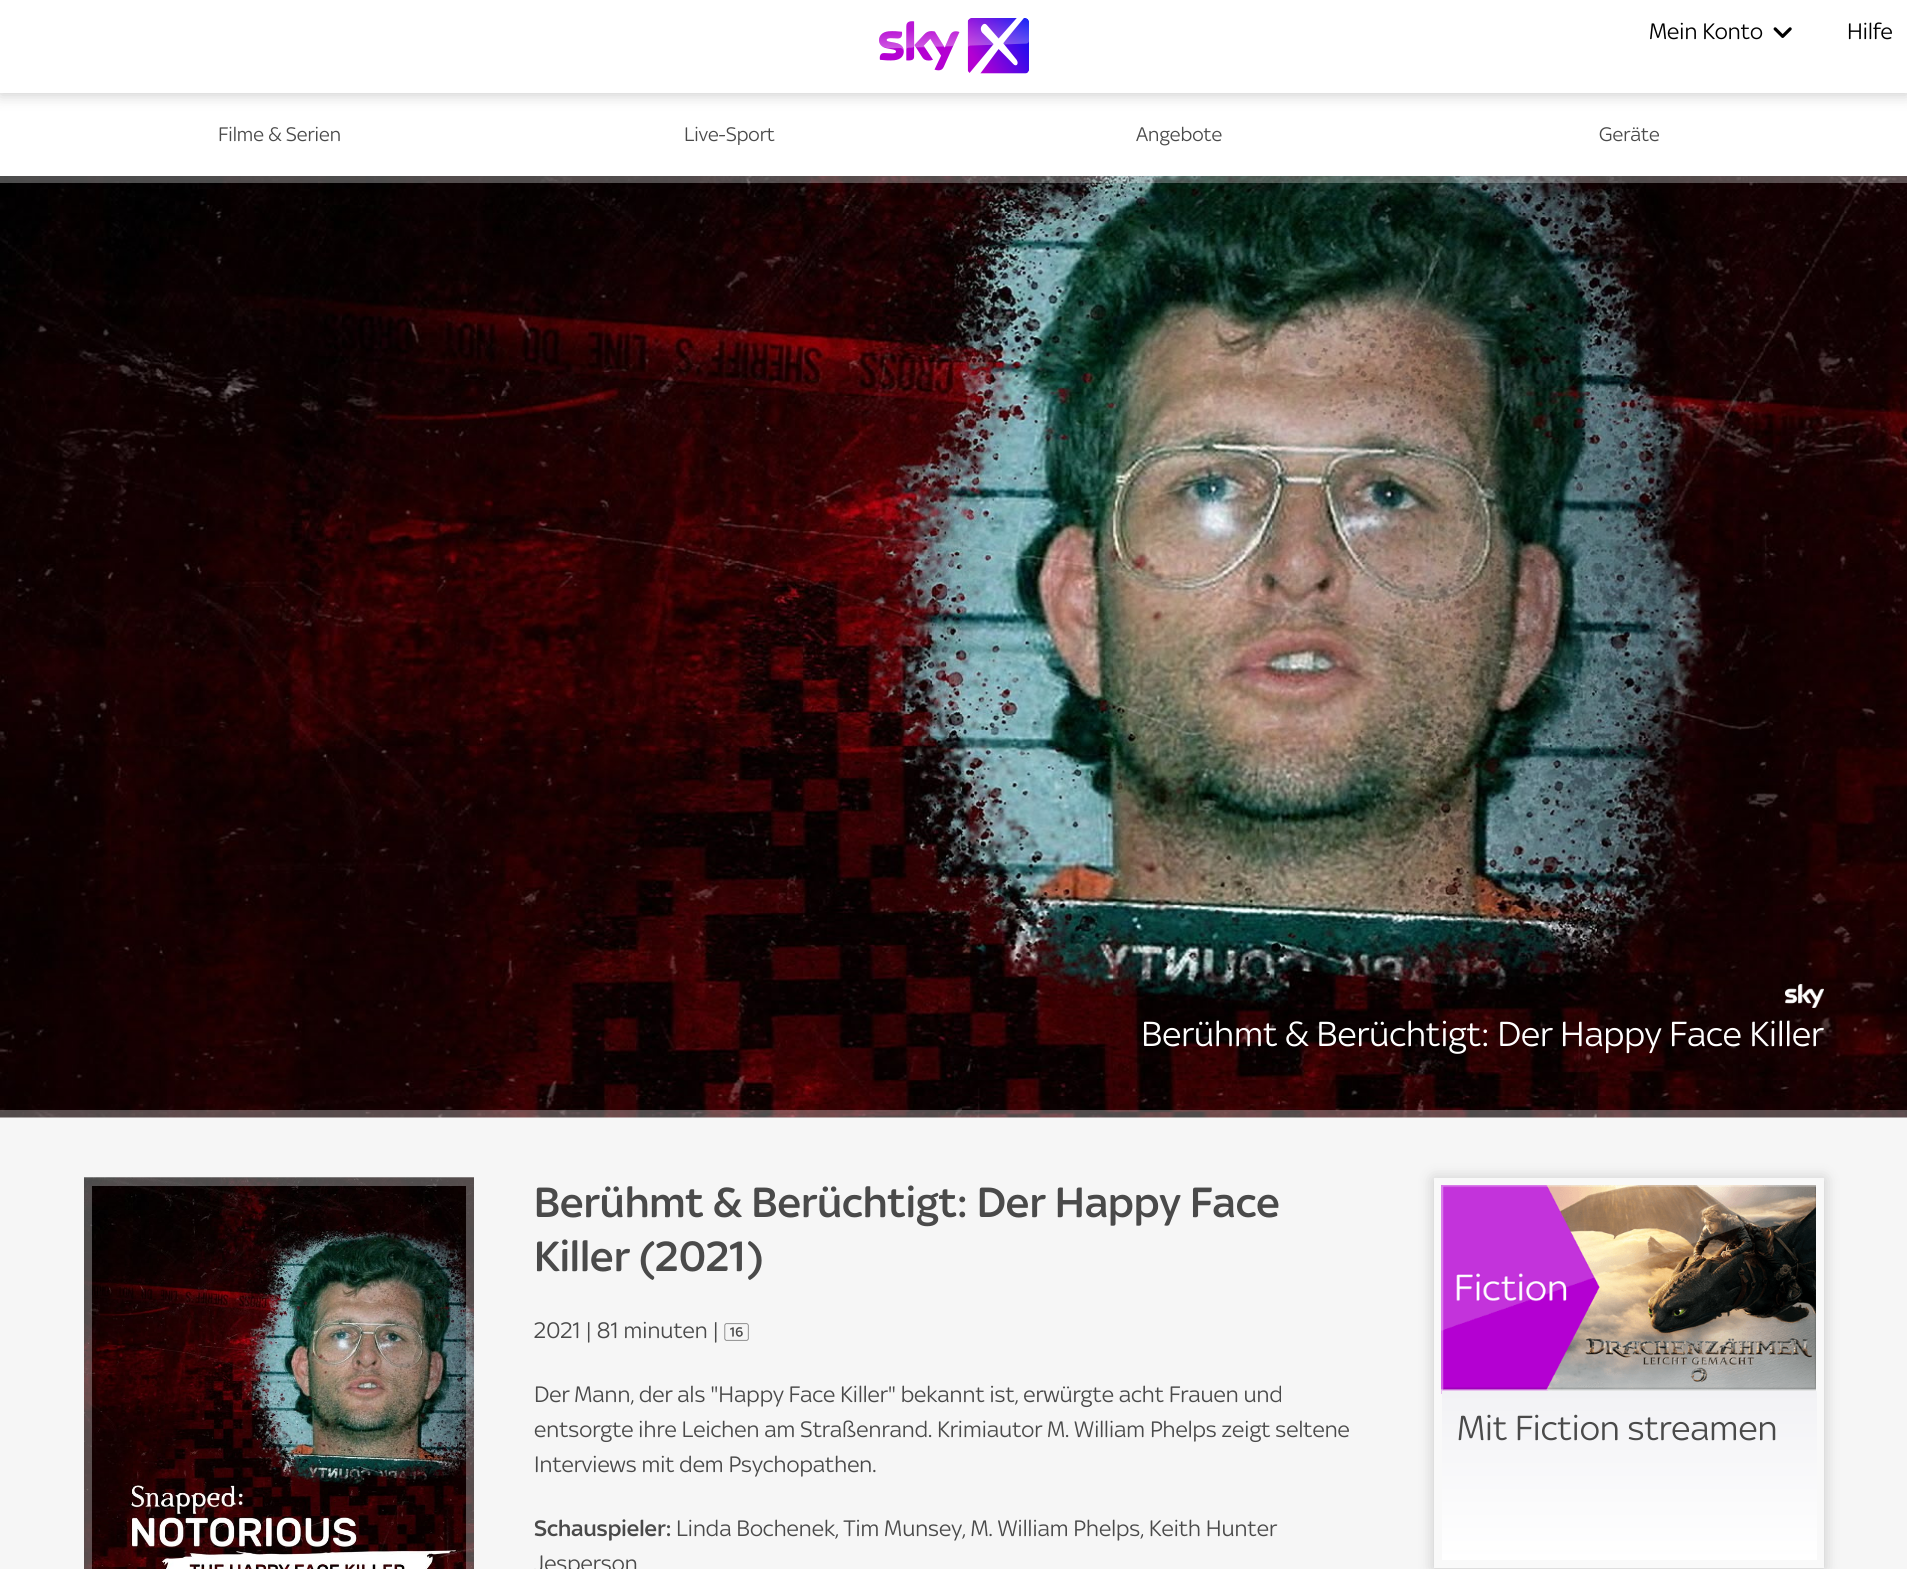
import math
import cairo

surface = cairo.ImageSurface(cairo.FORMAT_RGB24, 1907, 1569)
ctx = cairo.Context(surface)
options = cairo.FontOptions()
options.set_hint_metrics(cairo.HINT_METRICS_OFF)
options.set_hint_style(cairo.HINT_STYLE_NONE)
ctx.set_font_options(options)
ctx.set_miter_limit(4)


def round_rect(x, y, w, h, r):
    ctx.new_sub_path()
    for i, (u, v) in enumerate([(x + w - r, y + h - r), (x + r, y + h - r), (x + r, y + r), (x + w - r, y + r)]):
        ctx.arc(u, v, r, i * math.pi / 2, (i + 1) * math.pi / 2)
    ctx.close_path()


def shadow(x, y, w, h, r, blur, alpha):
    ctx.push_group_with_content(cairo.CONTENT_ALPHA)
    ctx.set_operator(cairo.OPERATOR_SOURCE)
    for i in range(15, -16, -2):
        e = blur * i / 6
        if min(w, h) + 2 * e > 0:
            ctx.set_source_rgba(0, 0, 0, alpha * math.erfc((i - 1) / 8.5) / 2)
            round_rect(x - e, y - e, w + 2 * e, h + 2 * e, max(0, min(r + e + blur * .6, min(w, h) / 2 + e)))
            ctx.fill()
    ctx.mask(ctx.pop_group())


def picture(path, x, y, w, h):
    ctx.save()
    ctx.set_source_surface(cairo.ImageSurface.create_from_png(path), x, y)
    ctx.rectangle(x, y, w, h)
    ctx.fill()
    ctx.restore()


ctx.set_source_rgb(0.961, 0.961, 0.961)
ctx.paint()
ctx.set_source_rgb(1, 1, 1)
ctx.rectangle(0, 93, 1907, 83)
ctx.fill()
ctx.set_source_rgb(0, 0, 0)
shadow(0, 2, 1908, 93, 0, 7.5, 0.2)
ctx.set_source_rgb(1, 1, 1)
ctx.rectangle(0, 0, 1907, 93)
ctx.fill()
picture("img1.png", 879, 18, 150, 56)
ctx.select_font_face("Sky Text")
ctx.set_font_size(24)
ctx.set_source_rgb(0, 0, 0)
ctx.move_to(1649, 39)
ctx.show_text("Mein Konto")
picture("img2.png", 1773, 27, 19, 11)
ctx.move_to(1847, 39)
ctx.show_text("Hilfe")
ctx.set_font_size(21)
ctx.set_source_rgb(0.29, 0.29, 0.29)
ctx.move_to(218, 141)
ctx.show_text("Filme & Serien")
ctx.move_to(684, 141)
ctx.show_text("Live-Sport")
ctx.move_to(1136, 141)
ctx.show_text("Angebote")
ctx.move_to(1599, 141)
ctx.show_text("Geräte")
picture("img3.png", 0, 176, 1907, 942)
ctx.set_source_rgba(1, 1, 1, 0.3)
ctx.rectangle(0, 176, 1907, 7)
ctx.fill()
picture("img4.png", 1785, 984, 39, 24)
ctx.set_font_size(37.3)
ctx.set_source_rgb(1, 1, 1)
ctx.move_to(1141, 1046)
ctx.show_text("Berühmt & Berüchtigt: Der Happy Face Killer")
ctx.set_source_rgba(1, 1, 1, 0.3)
ctx.rectangle(0, 1110, 1907, 8)
ctx.fill()
picture("img5.png", 84, 1177, 390, 392)
ctx.rectangle(88, 1182, 382, 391)
ctx.set_line_width(8)
ctx.stroke()
ctx.select_font_face("Sky Text Medium")
ctx.set_font_size(45.3)
ctx.set_source_rgb(0.29, 0.29, 0.29)
ctx.move_to(534, 1217)
ctx.show_text("Berühmt & Berüchtigt: Der Happy Face")
ctx.move_to(534, 1271)
ctx.show_text("Killer (2021)")
ctx.select_font_face("Sky Text")
ctx.set_font_size(24)
ctx.move_to(534, 1338)
ctx.show_text("2021 | 81 minuten |")
picture("img6.png", 724, 1323, 25, 18)
ctx.move_to(534, 1402)
ctx.show_text("Der Mann, der als \"Happy Face Killer\" bekannt ist, erwürgte acht Frauen und")
ctx.move_to(534, 1437)
ctx.show_text("entsorgte ihre Leichen am Straßenrand. Krimiautor M. William Phelps zeigt seltene")
ctx.move_to(534, 1472)
ctx.show_text("Interviews mit dem Psychopathen.")
ctx.select_font_face("Sky Text Medium")
ctx.move_to(534, 1536)
ctx.show_text("Schauspieler:")
ctx.select_font_face("Sky Text")
ctx.move_to(676, 1536)
ctx.show_text("Linda Bochenek, Tim Munsey, M. William Phelps, Keith Hunter")
ctx.move_to(534, 1571)
ctx.show_text("Jesperson")
ctx.save()
ctx.set_fill_rule(cairo.FILL_RULE_EVEN_ODD)
ctx.new_path()
ctx.move_to(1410, 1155)
ctx.line_to(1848, 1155)
ctx.line_to(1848, 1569)
ctx.line_to(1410, 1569)
ctx.close_path()
ctx.move_to(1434, 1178)
ctx.line_to(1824, 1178)
ctx.line_to(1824, 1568)
ctx.line_to(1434, 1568)
ctx.close_path()
ctx.clip()
ctx.set_source_rgb(0, 0, 0)
shadow(1434, 1179, 390, 390, 0, 7.5, 0.2)
ctx.restore()
ctx.set_source_rgba(1, 1, 1, 0.3)
ctx.rectangle(1434, 1178, 390, 390)
ctx.fill()
picture("img7.png", 1441, 1185, 375, 209)
gradient = cairo.LinearGradient(1629, 1391, 1629, 1560)
gradient.add_color_stop_rgba(0, 0.949, 0.949, 0.961, 1)
gradient.add_color_stop_rgba(1, 1, 1, 1, 1)
ctx.set_source(gradient)
ctx.rectangle(1442, 1391, 375, 169)
ctx.fill()
ctx.set_font_size(37.3)
ctx.set_source_rgb(0.29, 0.29, 0.29)
ctx.move_to(1457, 1440)
ctx.show_text("Mit Fiction streamen")
surface.write_to_png("page.png")
